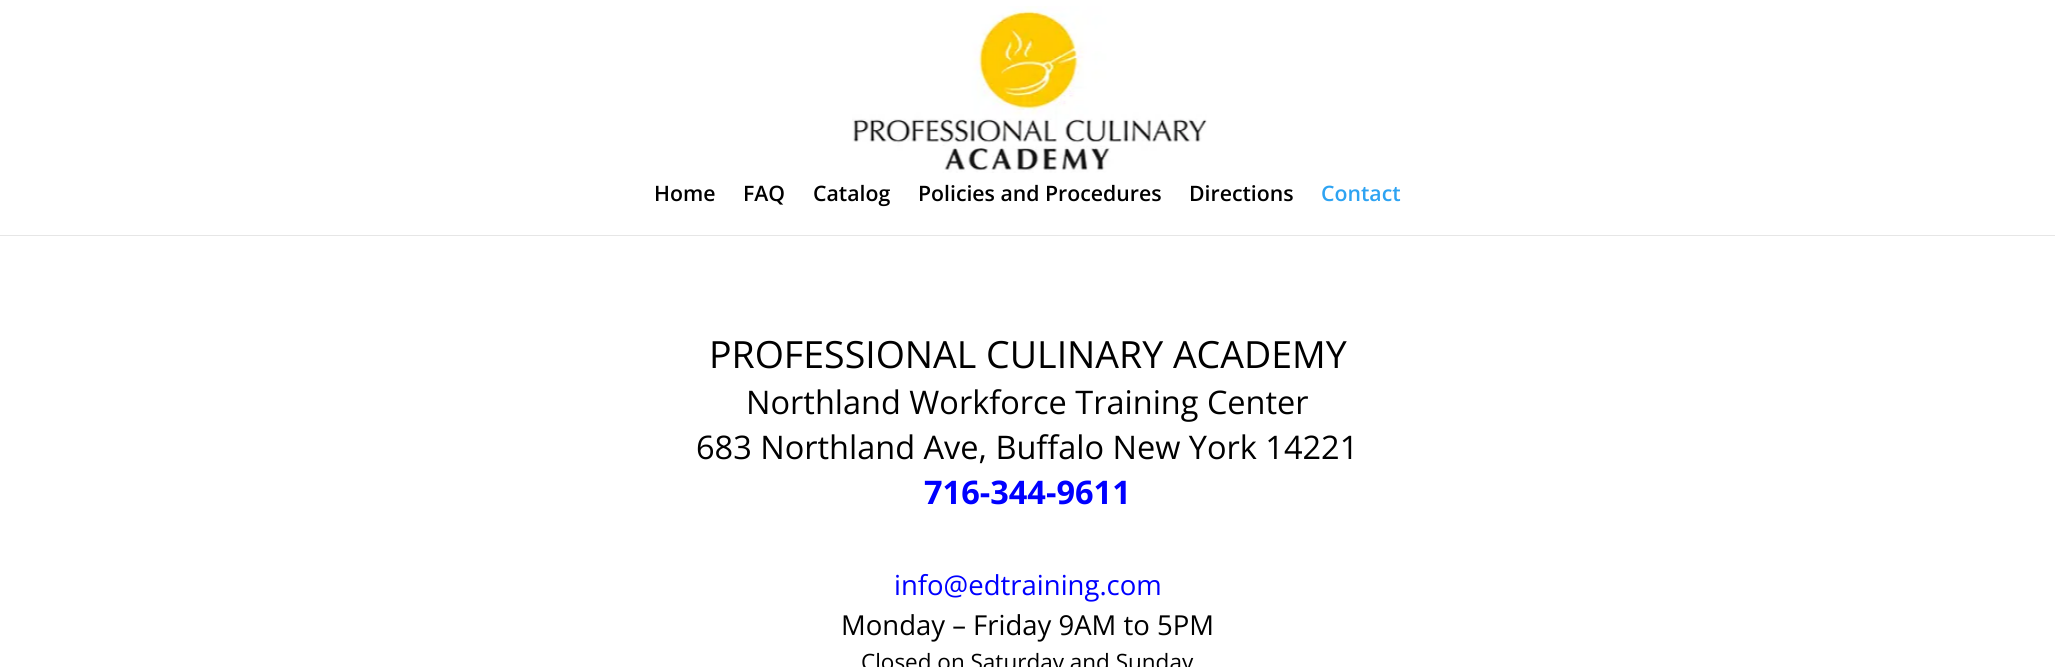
import math
import cairo

surface = cairo.ImageSurface(cairo.FORMAT_RGB24, 2055, 667)
ctx = cairo.Context(surface)
options = cairo.FontOptions()
options.set_hint_metrics(cairo.HINT_METRICS_OFF)
options.set_hint_style(cairo.HINT_STYLE_NONE)
ctx.set_font_options(options)
ctx.set_miter_limit(4)


def picture(path, x, y, w, h):
    ctx.save()
    ctx.set_source_surface(cairo.ImageSurface.create_from_png(path), x, y)
    ctx.rectangle(x, y, w, h)
    ctx.fill()
    ctx.restore()


ctx.set_source_rgb(1, 1, 1)
ctx.paint()
ctx.set_source_rgb(0.902, 0.902, 0.902)
ctx.rectangle(0, 235, 2055, 1)
ctx.fill()
picture("img1.png", 852, 6, 355, 167)
ctx.select_font_face("Open Sans SemiBold")
ctx.set_font_size(21.25)
ctx.set_source_rgb(0, 0, 0)
ctx.move_to(654, 201)
ctx.show_text("Home")
ctx.move_to(743, 201)
ctx.show_text("FAQ")
ctx.move_to(813, 201)
ctx.show_text("Catalog")
ctx.move_to(918, 201)
ctx.show_text("Policies and Procedures")
ctx.move_to(1189, 201)
ctx.show_text("Directions")
ctx.set_source_rgb(0.18, 0.639, 0.949)
ctx.move_to(1321, 201)
ctx.show_text("Contact")
ctx.select_font_face("Open Sans")
ctx.set_font_size(37.5)
ctx.set_source_rgb(0, 0, 0)
ctx.move_to(709, 368)
ctx.show_text("PROFESSIONAL CULINARY ACADEMY")
ctx.set_font_size(32.5)
ctx.move_to(746, 414)
ctx.show_text("Northland Workforce Training Center")
ctx.move_to(696, 459)
ctx.show_text("683 Northland Ave, Buffalo New York 14221")
ctx.select_font_face("Open Sans", cairo.FONT_SLANT_NORMAL, cairo.FONT_WEIGHT_BOLD)
ctx.set_source_rgb(0, 0, 1)
ctx.move_to(924, 504)
ctx.show_text("716-344-9611")
ctx.select_font_face("Open Sans")
ctx.set_font_size(27.5)
ctx.move_to(894, 595)
ctx.show_text("info@edtraining.com")
ctx.set_source_rgb(0, 0, 0)
ctx.move_to(841, 635)
ctx.show_text("Monday – Friday 9AM to 5PM")
ctx.set_font_size(22.5)
ctx.move_to(861, 670)
ctx.show_text("Closed on Saturday and Sunday")
surface.write_to_png("page.png")
